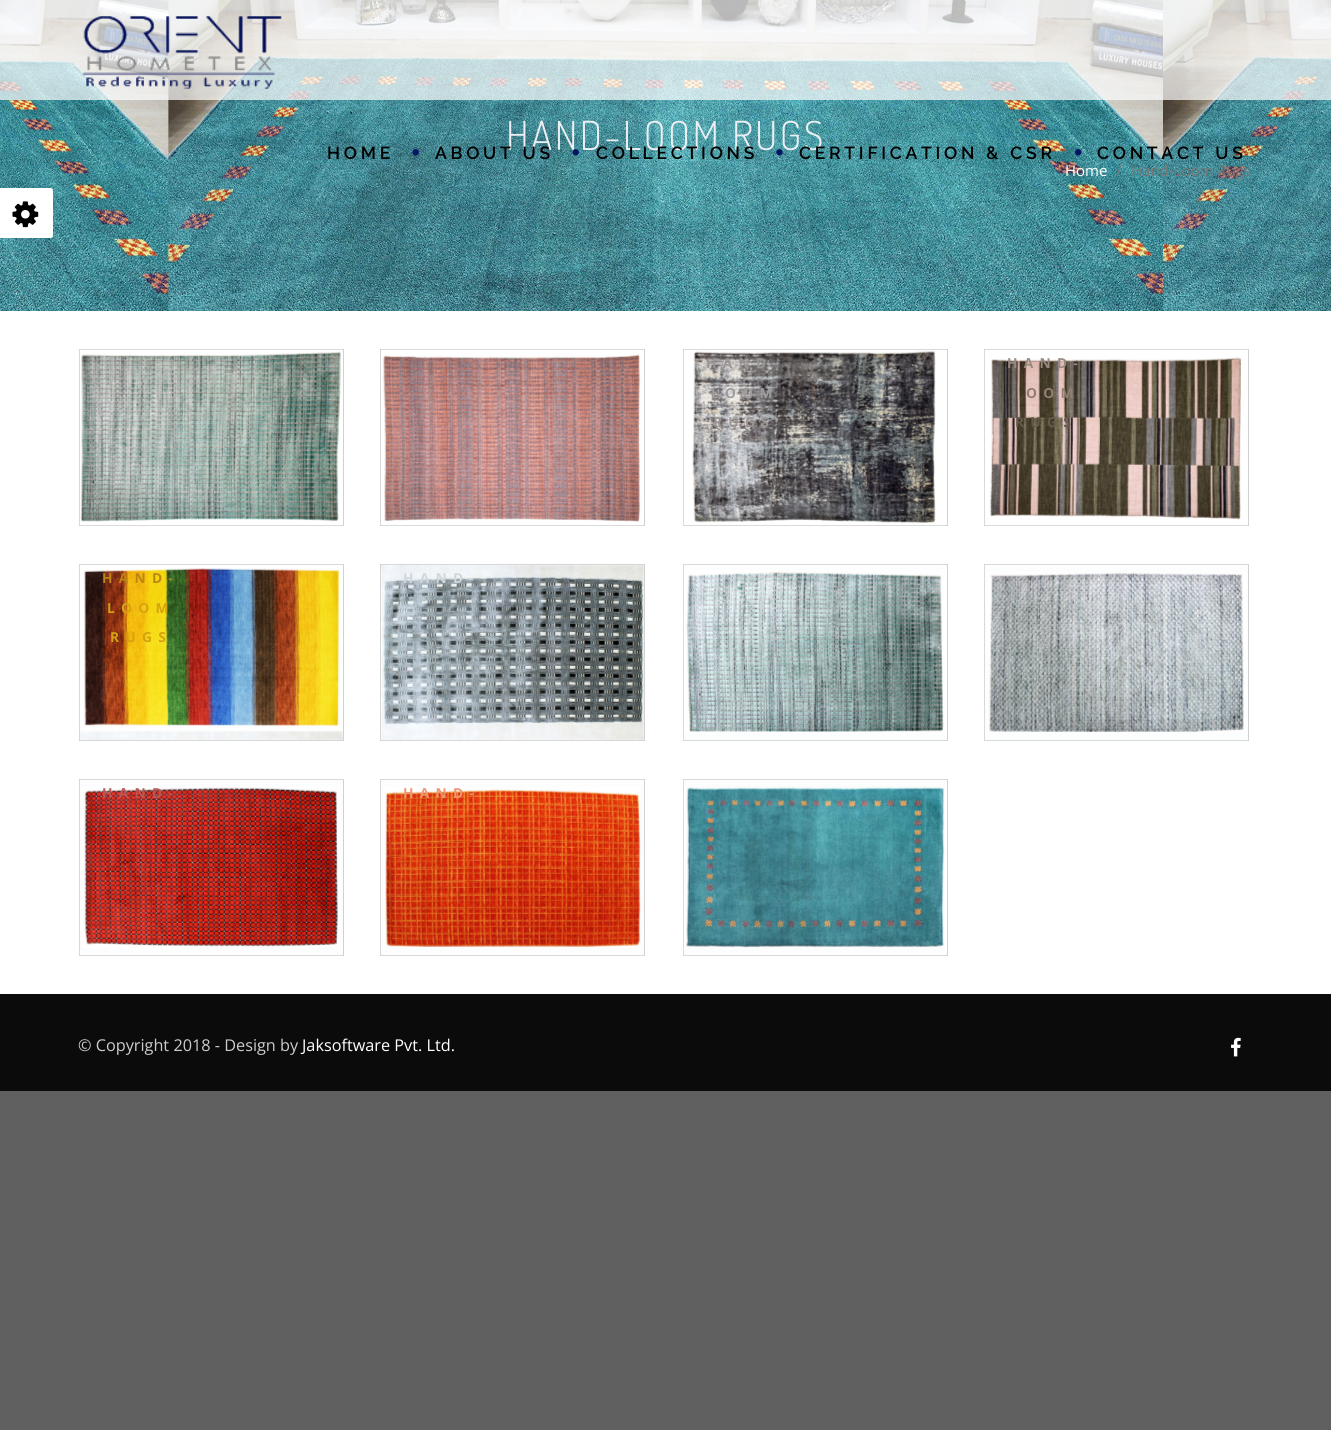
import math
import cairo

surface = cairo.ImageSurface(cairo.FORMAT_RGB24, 1331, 1430)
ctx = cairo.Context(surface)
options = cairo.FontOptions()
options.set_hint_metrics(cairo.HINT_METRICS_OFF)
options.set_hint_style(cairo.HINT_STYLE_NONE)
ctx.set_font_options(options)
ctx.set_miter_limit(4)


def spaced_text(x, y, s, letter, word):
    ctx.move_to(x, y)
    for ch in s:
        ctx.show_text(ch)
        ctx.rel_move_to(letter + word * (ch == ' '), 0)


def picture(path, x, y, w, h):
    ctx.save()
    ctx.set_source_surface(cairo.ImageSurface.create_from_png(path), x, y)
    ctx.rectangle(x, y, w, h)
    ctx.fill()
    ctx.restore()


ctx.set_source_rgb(0.376, 0.376, 0.376)
ctx.paint()
picture("img2.png", 0, 0, 1331, 311)
ctx.set_source_rgb(1, 1, 1)
ctx.new_path()
ctx.move_to(0, 188)
ctx.line_to(50.5, 188)
ctx.curve_to(52, 188, 53, 189, 53, 190.5)
ctx.line_to(53, 235.5)
ctx.curve_to(53, 237, 52, 238, 50.5, 238)
ctx.line_to(0, 238)
ctx.close_path()
ctx.fill()
picture("img1.png", 12, 201, 27, 27)
ctx.select_font_face("Dosis Light")
ctx.set_font_size(40)
ctx.set_source_rgb(0.925, 0.937, 0.953)
spaced_text(506, 150, "HAND-LOOM RUGS", 2.5, 0)
ctx.select_font_face("Open Sans")
ctx.set_font_size(15)
ctx.set_source_rgb(1, 1, 1)
ctx.move_to(1065, 176)
ctx.show_text("Home")
ctx.set_source_rgb(0.467, 0.467, 0.467)
ctx.move_to(1116, 176)
ctx.show_text("/")
ctx.move_to(1131, 176)
ctx.show_text("Hand-Loom Rugs")
ctx.set_source_rgba(1, 1, 1, 0.7)
ctx.rectangle(0, 0, 1331, 100)
ctx.fill()
picture("img3.png", 82, 16, 200, 73)
ctx.select_font_face("Raleway SemiBold")
ctx.set_font_size(17.5)
ctx.set_source_rgb(0, 0, 0)
spaced_text(327, 159, "HOME", 3.75, 0)
picture("img4.png", 412, 149, 7, 7)
spaced_text(435, 159, "ABOUT US", 3.75, 0)
picture("img5.png", 572, 149, 7, 7)
spaced_text(596, 159, "COLLECTIONS", 3.75, 0)
picture("img6.png", 776, 149, 7, 7)
spaced_text(799, 159, "CERTIFICATION & CSR", 3.75, 0)
picture("img7.png", 1075, 149, 7, 7)
spaced_text(1097, 159, "CONTACT US", 3.75, 0)
ctx.set_source_rgb(1, 1, 1)
ctx.rectangle(0, 311, 1331, 683)
ctx.fill()
ctx.rectangle(79.5, 349.5, 264, 176)
ctx.set_source_rgb(0.824, 0.82, 0.82)
ctx.set_line_width(1)
ctx.stroke()
picture("img8.png", 79, 349, 264, 177)
ctx.rectangle(380.5, 349.5, 264, 176)
ctx.stroke()
picture("img9.png", 380, 349, 264, 177)
ctx.rectangle(683.5, 349.5, 264, 176)
ctx.stroke()
picture("img10.png", 683, 349, 263, 177)
ctx.select_font_face("Open Sans", cairo.FONT_SLANT_NORMAL, cairo.FONT_WEIGHT_BOLD)
ctx.set_font_size(13.75)
ctx.set_source_rgb(0.604, 0.588, 0.584)
spaced_text(706, 368, "HAND-", 6.25, 0)
ctx.set_source_rgb(0.62, 0.612, 0.612)
spaced_text(711, 398, "LOOM", 6.25, 0)
ctx.set_source_rgb(0.604, 0.588, 0.584)
spaced_text(713, 427, "RUGS", 6.25, 0)
ctx.rectangle(984.5, 349.5, 264, 176)
ctx.set_source_rgb(0.824, 0.82, 0.82)
ctx.stroke()
picture("img11.png", 984, 349, 264, 177)
ctx.set_source_rgb(0.596, 0.541, 0.506)
spaced_text(1007, 368, "HAND-", 6.25, 0)
ctx.set_source_rgb(0.569, 0.498, 0.455)
spaced_text(1026, 398, "OOM", 6.25, 0)
ctx.set_source_rgb(0.4, 0.353, 0.294)
spaced_text(1015, 427, "RUGS", 6.25, 0)
ctx.rectangle(79.5, 564.5, 264, 176)
ctx.set_source_rgb(0.824, 0.82, 0.82)
ctx.stroke()
picture("img12.png", 79, 564, 264, 177)
ctx.set_source_rgb(0.737, 0.518, 0.071)
spaced_text(102, 583, "HAND-", 6.25, 0)
ctx.set_source_rgb(0.835, 0.635, 0.063)
spaced_text(107, 613, "LOOM", 6.25, 0)
spaced_text(110, 642, "RUGS", 6.25, 0)
ctx.rectangle(380.5, 564.5, 264, 176)
ctx.set_source_rgb(0.824, 0.82, 0.82)
ctx.stroke()
picture("img13.png", 380, 564, 264, 177)
ctx.set_source_rgb(0.816, 0.843, 0.859)
spaced_text(403, 583, "HAND-", 6.25, 0)
ctx.rectangle(683.5, 564.5, 264, 176)
ctx.set_source_rgb(0.824, 0.82, 0.82)
ctx.stroke()
picture("img14.png", 683, 564, 263, 177)
ctx.rectangle(984.5, 564.5, 264, 176)
ctx.stroke()
picture("img15.png", 984, 564, 264, 177)
ctx.rectangle(79.5, 779.5, 264, 176)
ctx.stroke()
picture("img16.png", 79, 779, 264, 177)
ctx.set_source_rgb(0.718, 0.353, 0.337)
spaced_text(102, 798, "HAND-", 6.25, 0)
ctx.rectangle(380.5, 779.5, 264, 176)
ctx.set_source_rgb(0.824, 0.82, 0.82)
ctx.stroke()
picture("img17.png", 380, 779, 264, 177)
ctx.set_source_rgb(0.929, 0.592, 0.451)
spaced_text(403, 798, "HAND-", 6.25, 0)
ctx.rectangle(683.5, 779.5, 264, 176)
ctx.set_source_rgb(0.824, 0.82, 0.82)
ctx.stroke()
picture("img18.png", 683, 779, 263, 177)
ctx.set_source_rgb(0.043, 0.043, 0.043)
ctx.rectangle(0, 994, 1331, 97)
ctx.fill()
ctx.select_font_face("Open Sans")
ctx.set_font_size(16.25)
ctx.set_source_rgb(0.8, 0.8, 0.8)
ctx.move_to(78, 1051)
ctx.show_text("© Copyright 2018 - Design by")
ctx.set_source_rgb(1, 1, 1)
ctx.move_to(302, 1051)
ctx.show_text("Jaksoftware Pvt. Ltd.")
picture("img19.png", 1231, 1037, 10, 20)
surface.write_to_png("page.png")
